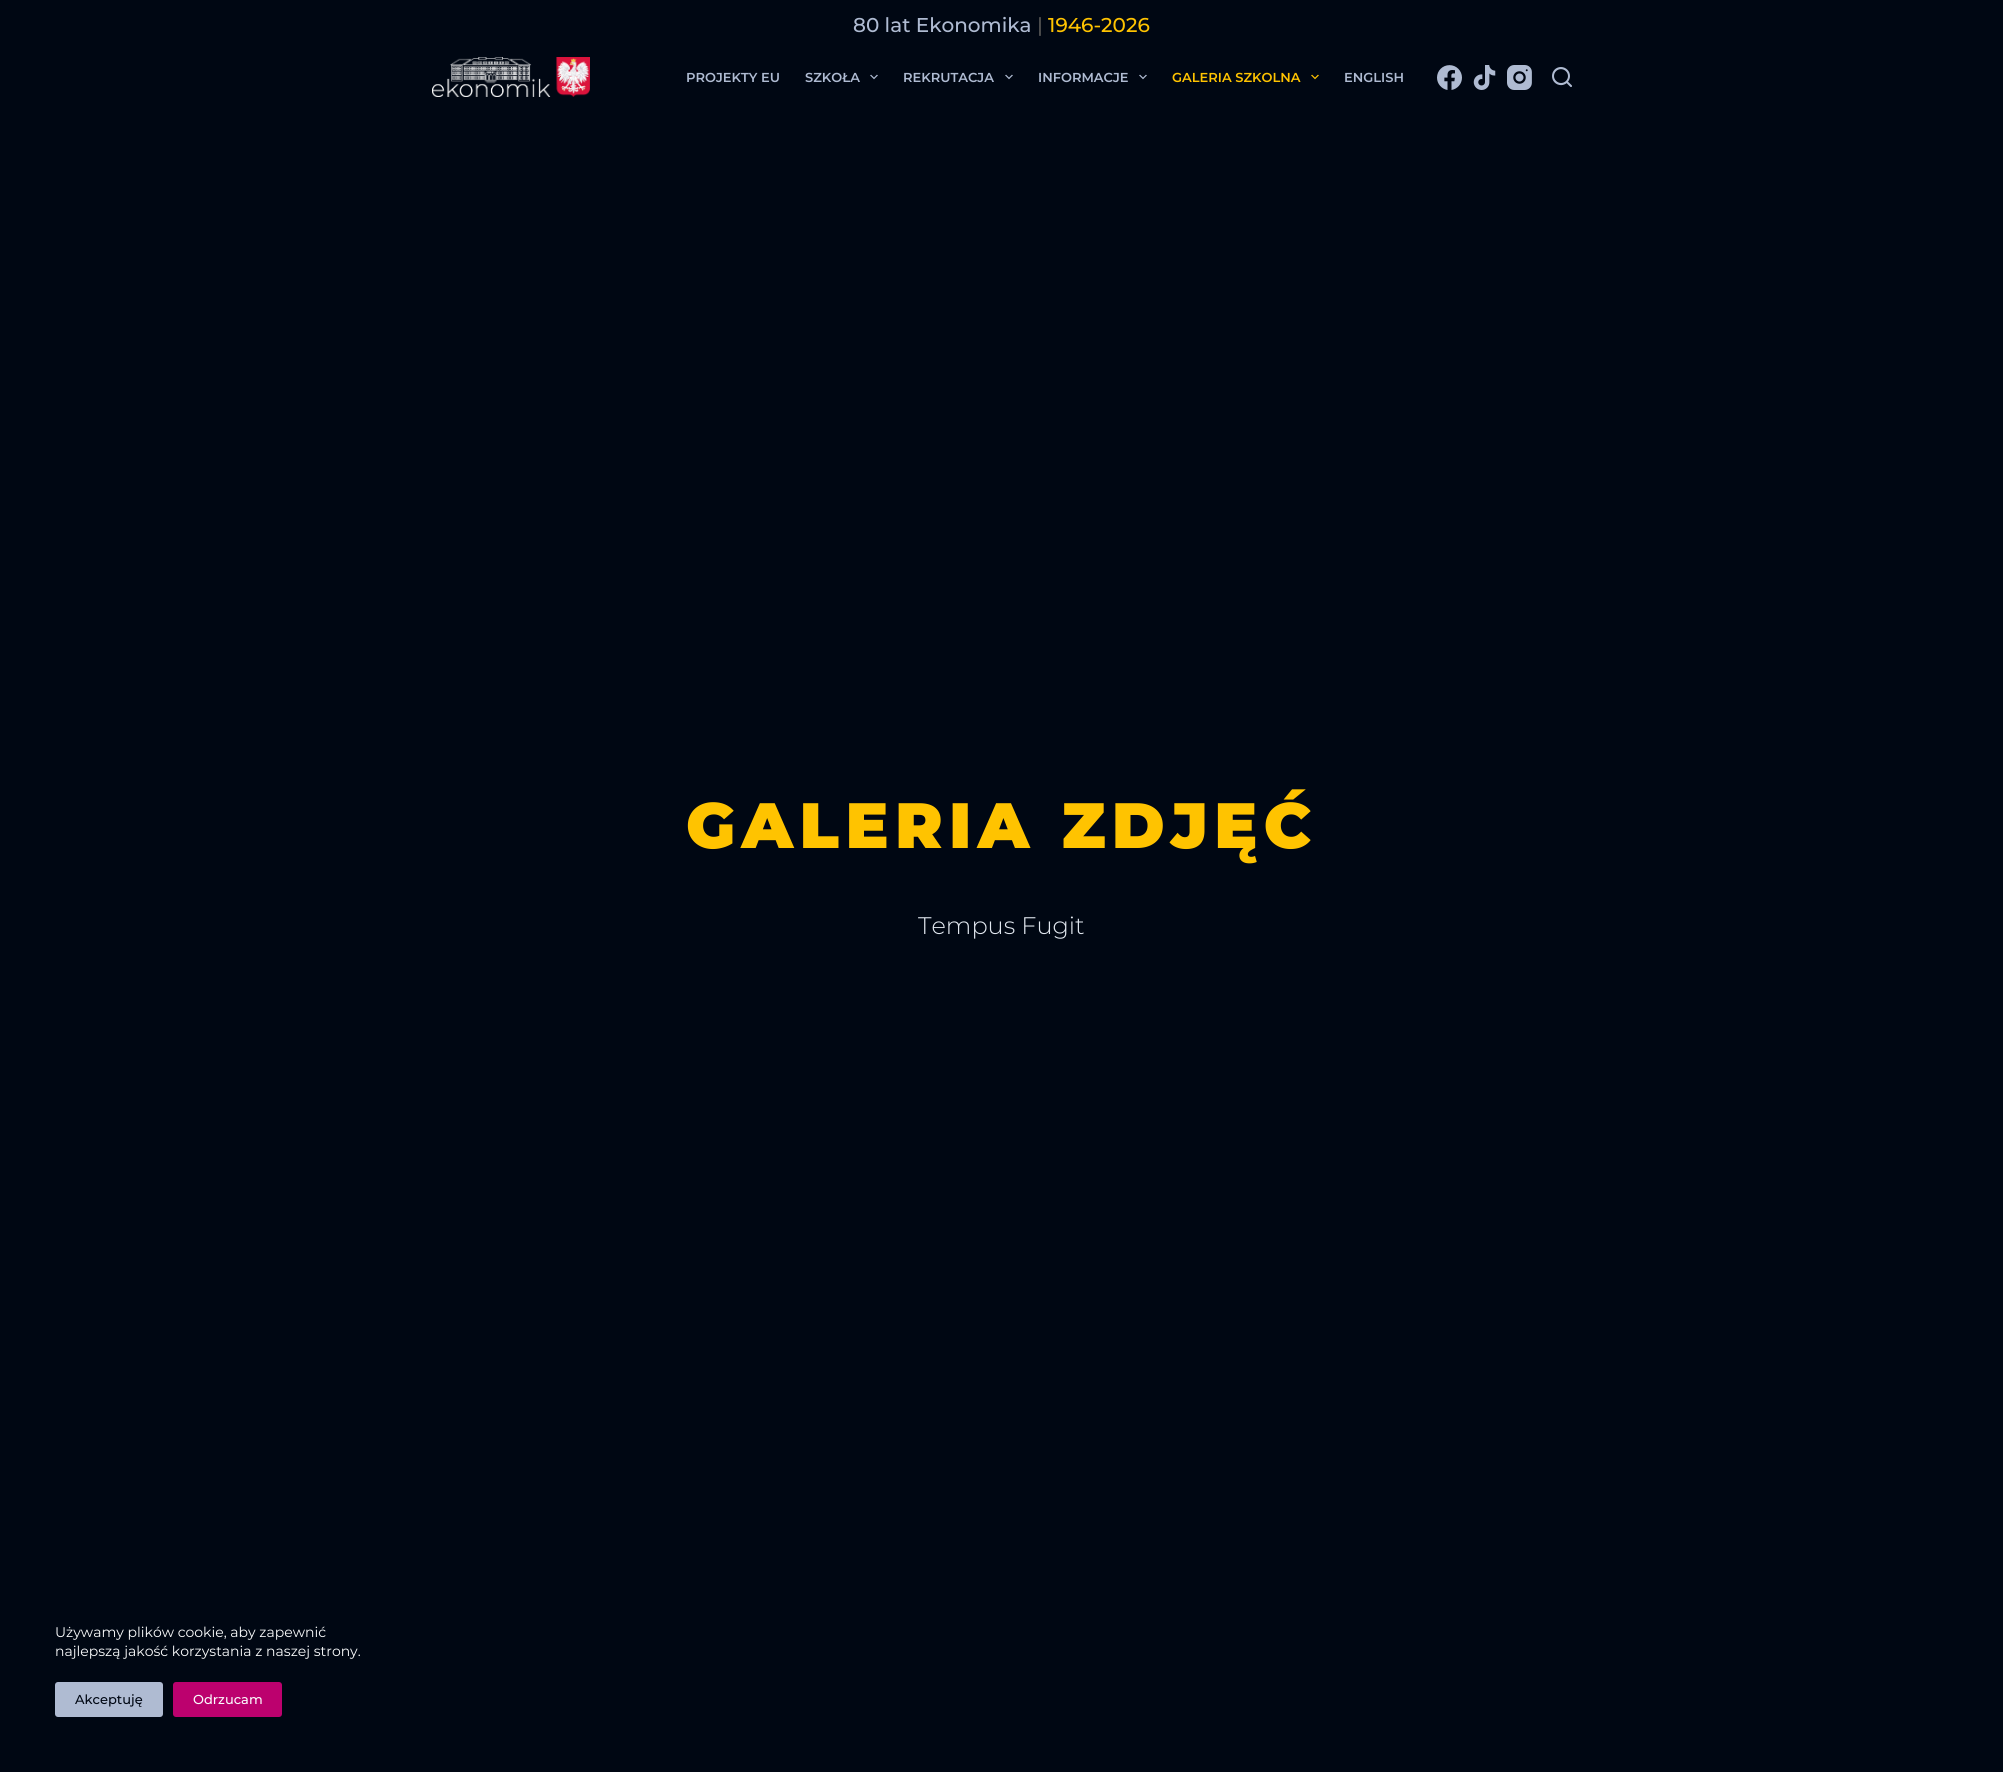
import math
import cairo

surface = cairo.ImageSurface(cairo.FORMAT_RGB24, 2003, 1772)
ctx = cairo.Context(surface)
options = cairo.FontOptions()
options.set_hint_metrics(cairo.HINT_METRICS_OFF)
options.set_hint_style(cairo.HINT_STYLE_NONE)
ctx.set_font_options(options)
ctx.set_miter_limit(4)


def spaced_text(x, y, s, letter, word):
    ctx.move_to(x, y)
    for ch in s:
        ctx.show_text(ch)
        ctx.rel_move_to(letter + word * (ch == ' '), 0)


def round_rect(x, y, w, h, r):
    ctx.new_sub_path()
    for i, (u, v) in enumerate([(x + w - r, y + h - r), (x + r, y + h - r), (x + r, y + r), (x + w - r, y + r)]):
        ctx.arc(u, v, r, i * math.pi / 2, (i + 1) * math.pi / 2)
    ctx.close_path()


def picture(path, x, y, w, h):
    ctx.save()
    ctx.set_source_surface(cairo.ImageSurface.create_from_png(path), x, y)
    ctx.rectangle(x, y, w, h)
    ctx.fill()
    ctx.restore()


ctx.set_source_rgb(0, 0.031, 0.078)
ctx.paint()
ctx.select_font_face("Montserrat Medium")
ctx.set_font_size(20)
ctx.set_source_rgb(0.686, 0.733, 0.824)
ctx.move_to(853, 32)
ctx.show_text("80 lat Ekonomika")
ctx.set_source_rgb(0.322, 0.322, 0.322)
ctx.move_to(1037, 32)
ctx.show_text("|")
ctx.set_source_rgb(1, 0.765, 0)
ctx.move_to(1048, 32)
ctx.show_text("1946-2026")
picture("img1.png", 432, 57, 158, 40)
ctx.select_font_face("Montserrat SemiBold")
ctx.set_font_size(13)
ctx.set_source_rgb(0.686, 0.733, 0.824)
ctx.move_to(686, 82)
ctx.show_text("PROJEKTY EU")
ctx.move_to(805, 82)
ctx.show_text("SZKOŁA")
picture("img2.png", 870, 74, 8, 6)
ctx.move_to(903, 82)
ctx.show_text("REKRUTACJA")
picture("img2.png", 1005, 74, 8, 6)
ctx.move_to(1038, 82)
ctx.show_text("INFORMACJE")
picture("img2.png", 1139, 74, 8, 6)
ctx.set_source_rgb(1, 0.765, 0)
ctx.move_to(1172, 82)
ctx.show_text("GALERIA SZKOLNA")
picture("img3.png", 1311, 74, 8, 6)
ctx.set_source_rgb(0.686, 0.733, 0.824)
ctx.move_to(1344, 82)
ctx.show_text("ENGLISH")
picture("img4.png", 1437, 65, 25, 25)
picture("img5.png", 1473, 65, 23, 25)
picture("img6.png", 1507, 65, 25, 25)
picture("img7.png", 1552, 67, 20, 20)
ctx.select_font_face("Montserrat Black")
ctx.set_font_size(64)
ctx.set_source_rgb(1, 0.765, 0)
spaced_text(686, 848, "GALERIA ZDJĘĆ", 6.4, 0)
ctx.select_font_face("Montserrat Light")
ctx.set_font_size(24)
ctx.set_source_rgb(0.886, 0.91, 0.941)
ctx.move_to(918, 934)
ctx.show_text("Tempus Fugit")
ctx.select_font_face("Montserrat")
ctx.set_font_size(14)
ctx.set_source_rgb(0.98, 0.984, 0.988)
ctx.move_to(55, 1637)
ctx.show_text("Używamy plików cookie, aby zapewnić")
ctx.move_to(55, 1656)
ctx.show_text("najlepszą jakość korzystania z naszej strony.")
ctx.set_source_rgb(0.686, 0.733, 0.824)
round_rect(55, 1682, 108, 35, 3)
ctx.fill()
ctx.select_font_face("Montserrat Medium")
ctx.set_font_size(13)
ctx.set_source_rgb(0, 0.031, 0.078)
ctx.move_to(75, 1704)
ctx.show_text("Akceptuję")
ctx.set_source_rgb(0.737, 0.004, 0.431)
round_rect(173, 1682, 109, 35, 3)
ctx.fill()
ctx.set_source_rgb(0.98, 0.984, 0.988)
ctx.move_to(193, 1704)
ctx.show_text("Odrzucam")
surface.write_to_png("page.png")
